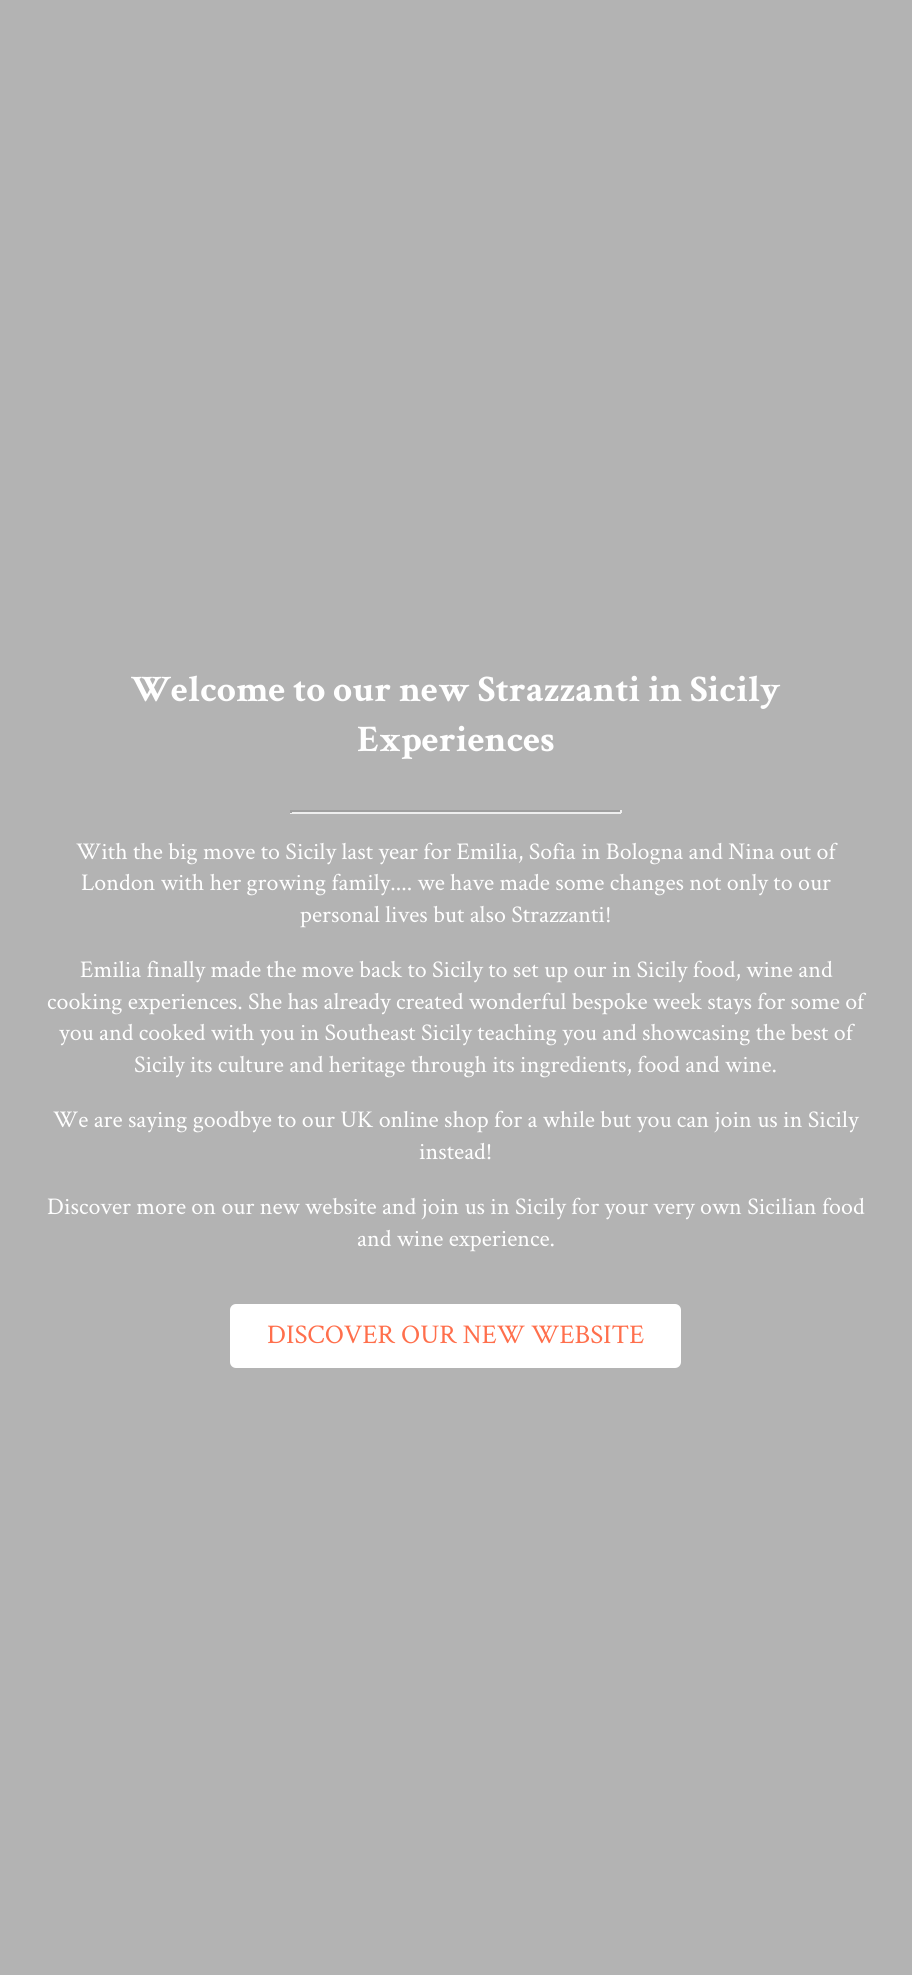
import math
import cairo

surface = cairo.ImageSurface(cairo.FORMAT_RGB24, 912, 1975)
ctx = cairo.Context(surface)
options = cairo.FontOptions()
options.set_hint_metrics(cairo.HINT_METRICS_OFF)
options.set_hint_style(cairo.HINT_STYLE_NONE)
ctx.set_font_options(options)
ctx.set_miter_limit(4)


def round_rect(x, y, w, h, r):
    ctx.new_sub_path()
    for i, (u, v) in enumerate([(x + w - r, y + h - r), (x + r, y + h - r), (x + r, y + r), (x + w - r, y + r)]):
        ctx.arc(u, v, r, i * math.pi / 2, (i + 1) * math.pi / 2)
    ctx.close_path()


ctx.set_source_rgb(0.702, 0.702, 0.702)
ctx.paint()
ctx.select_font_face("Crimson Text", cairo.FONT_SLANT_NORMAL, cairo.FONT_WEIGHT_BOLD)
ctx.set_font_size(37.5)
ctx.set_source_rgb(1, 1, 1)
ctx.move_to(131, 701)
ctx.show_text("Welcome to our new Strazzanti in Sicily")
ctx.move_to(357, 751)
ctx.show_text("Experiences")
ctx.set_source_rgb(0.624, 0.624, 0.624)
ctx.rectangle(290, 810, 331, 2)
ctx.fill()
ctx.set_source_rgb(0.933, 0.933, 0.933)
ctx.rectangle(620, 810, 2, 3)
ctx.fill()
ctx.rectangle(290, 812, 331, 2)
ctx.fill()
ctx.set_source_rgb(0.624, 0.624, 0.624)
ctx.rectangle(290, 810, 2, 3)
ctx.fill()
ctx.select_font_face("Crimson Text")
ctx.set_font_size(24)
ctx.set_source_rgb(1, 1, 1)
ctx.move_to(76, 859)
ctx.show_text("With the big move to Sicily last year for Emilia, Sofia in Bologna and Nina out of")
ctx.move_to(81, 890)
ctx.show_text("London with her growing family.... we have made some changes not only to our")
ctx.move_to(300, 922)
ctx.show_text("personal lives but also Strazzanti!")
ctx.move_to(80, 977)
ctx.show_text("Emilia finally made the move back to Sicily to set up our in Sicily food, wine and")
ctx.move_to(47, 1009)
ctx.show_text("cooking experiences. She has already created wonderful bespoke week stays for some of")
ctx.move_to(59, 1040)
ctx.show_text("you and cooked with you in Southeast Sicily teaching you and showcasing the best of")
ctx.move_to(134, 1072)
ctx.show_text("Sicily its culture and heritage through its ingredients, food and wine.")
ctx.move_to(53, 1127)
ctx.show_text("We are saying goodbye to our UK online shop for a while but you can join us in Sicily")
ctx.move_to(419, 1159)
ctx.show_text("instead!")
ctx.move_to(47, 1214)
ctx.show_text("Discover more on our new website and join us in Sicily for your very own Sicilian food")
ctx.move_to(357, 1246)
ctx.show_text("and wine experience.")
round_rect(230, 1304, 451, 64, 6)
ctx.fill()
ctx.set_font_size(27)
ctx.set_source_rgb(1, 0.435, 0.298)
ctx.move_to(267, 1343)
ctx.show_text("DISCOVER OUR NEW WEBSITE")
surface.write_to_png("page.png")
